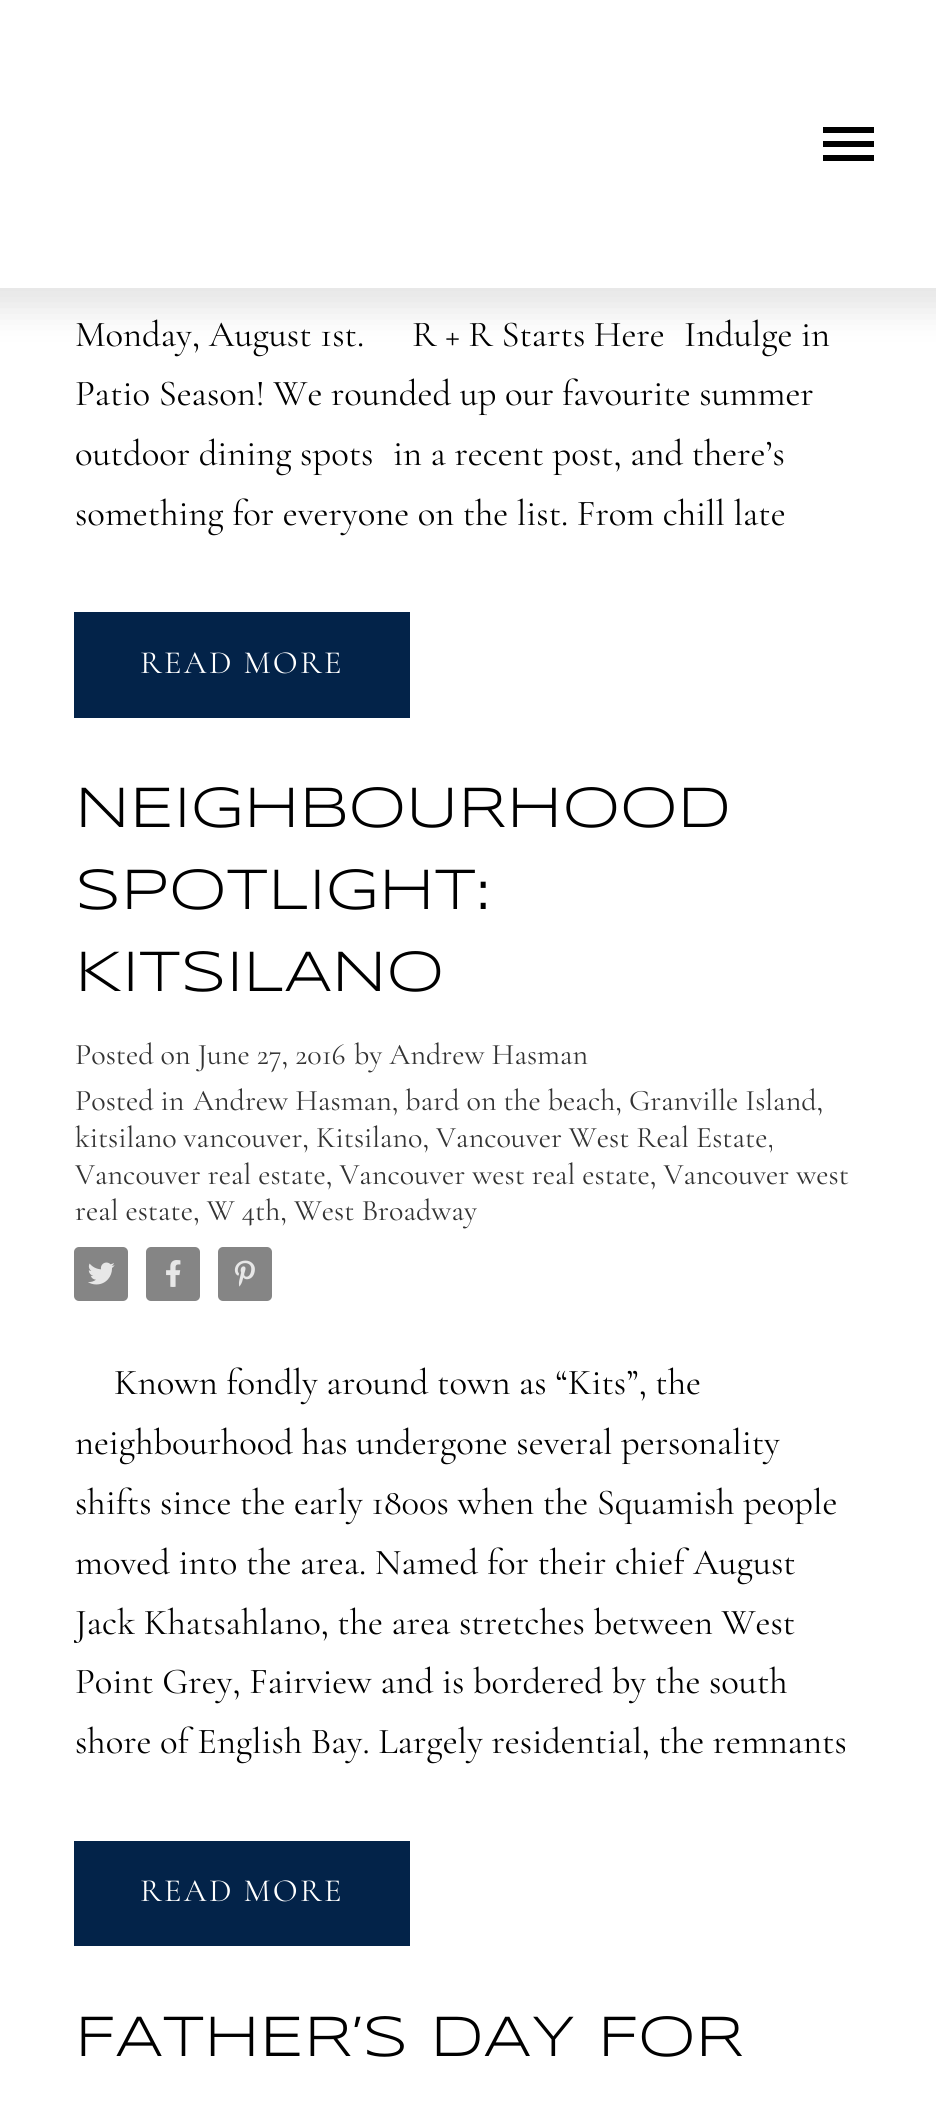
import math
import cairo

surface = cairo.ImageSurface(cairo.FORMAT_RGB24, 936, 2114)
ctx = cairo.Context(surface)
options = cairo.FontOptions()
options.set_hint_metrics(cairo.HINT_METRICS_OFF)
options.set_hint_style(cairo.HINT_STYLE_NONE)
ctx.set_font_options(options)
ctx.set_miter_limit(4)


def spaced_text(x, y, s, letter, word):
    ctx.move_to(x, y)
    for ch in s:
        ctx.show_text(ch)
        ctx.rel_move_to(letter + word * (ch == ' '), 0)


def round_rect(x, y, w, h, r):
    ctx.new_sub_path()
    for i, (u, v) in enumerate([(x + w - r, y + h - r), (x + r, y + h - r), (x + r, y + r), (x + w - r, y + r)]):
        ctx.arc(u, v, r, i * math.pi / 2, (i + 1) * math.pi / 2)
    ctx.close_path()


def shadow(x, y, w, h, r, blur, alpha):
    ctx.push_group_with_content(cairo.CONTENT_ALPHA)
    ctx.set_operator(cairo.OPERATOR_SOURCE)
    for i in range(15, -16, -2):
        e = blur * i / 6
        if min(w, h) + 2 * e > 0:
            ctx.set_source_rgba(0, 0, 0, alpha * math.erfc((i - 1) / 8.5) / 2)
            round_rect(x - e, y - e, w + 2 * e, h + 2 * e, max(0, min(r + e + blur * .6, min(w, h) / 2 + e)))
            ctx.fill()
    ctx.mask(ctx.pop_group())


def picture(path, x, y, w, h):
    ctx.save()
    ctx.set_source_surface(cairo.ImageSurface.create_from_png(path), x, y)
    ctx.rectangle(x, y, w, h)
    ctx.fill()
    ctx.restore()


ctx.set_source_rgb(1, 1, 1)
ctx.paint()
ctx.set_source_rgb(0, 0, 0)
shadow(-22, -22, 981, 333, 0, 17, 0.1)
ctx.set_source_rgb(1, 1, 1)
ctx.rectangle(0, 0, 936, 288)
ctx.fill()
ctx.set_source_rgb(0, 0, 0)
ctx.new_path()
ctx.move_to(823, 161)
ctx.line_to(874, 161)
ctx.line_to(874, 155)
ctx.line_to(823, 155)
ctx.close_path()
ctx.move_to(823, 147)
ctx.line_to(874, 147)
ctx.line_to(874, 141)
ctx.line_to(823, 141)
ctx.close_path()
ctx.move_to(823, 127)
ctx.line_to(823, 133)
ctx.line_to(874, 133)
ctx.line_to(874, 127)
ctx.close_path()
ctx.fill()
ctx.select_font_face("Cormorant Garamond")
ctx.set_font_size(36.6)
ctx.move_to(75, 346)
ctx.show_text("Monday, August 1st.")
ctx.move_to(412, 346)
ctx.show_text("R + R Starts Here")
ctx.move_to(684, 346)
ctx.show_text("Indulge in")
ctx.move_to(75, 405)
ctx.show_text("Patio Season! We rounded up our")
ctx.move_to(562, 405)
ctx.show_text("favourite summer")
ctx.move_to(75, 465)
ctx.show_text("outdoor dining spots")
ctx.move_to(393, 465)
ctx.show_text("in a recent post, and there’s")
ctx.move_to(75, 525)
ctx.show_text("something for everyone on the list. From chill late")
ctx.set_source_rgb(0.012, 0.137, 0.286)
ctx.rectangle(74, 612, 336, 106)
ctx.fill()
ctx.set_font_size(32.5)
ctx.set_source_rgb(1, 1, 1)
spaced_text(140, 673, "READ MORE", 2.25, 0)
ctx.select_font_face("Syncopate")
ctx.set_font_size(58.5)
ctx.set_source_rgb(0, 0, 0)
ctx.move_to(75, 827)
ctx.show_text("NEIGHBOURHOOD")
ctx.move_to(75, 909)
ctx.show_text("SPOTLIGHT:")
ctx.move_to(75, 991)
ctx.show_text("KITSILANO")
ctx.select_font_face("Cormorant Garamond")
ctx.set_font_size(30)
ctx.set_source_rgb(0.2, 0.2, 0.2)
ctx.move_to(75, 1064)
ctx.show_text("Posted on June 27, 2016")
ctx.move_to(354, 1064)
ctx.show_text("by Andrew Hasman")
ctx.move_to(75, 1110)
ctx.show_text("Posted in")
ctx.move_to(193, 1110)
ctx.show_text("Andrew Hasman, bard on the beach, Granville Island,")
ctx.move_to(75, 1147)
ctx.show_text("kitsilano vancouver, Kitsilano, Vancouver West Real Estate,")
ctx.move_to(75, 1184)
ctx.show_text("Vancouver real estate, Vancouver west real estate, Vancouver west")
ctx.move_to(75, 1220)
ctx.show_text("real estate, W 4th, West Broadway")
ctx.set_source_rgb(0.522, 0.522, 0.522)
round_rect(74, 1247, 54, 54, 5)
ctx.fill()
picture("img1.png", 88, 1262, 27, 23)
round_rect(146, 1247, 54, 54, 5)
ctx.fill()
picture("img2.png", 166, 1260, 15, 27)
round_rect(218, 1247, 54, 54, 5)
ctx.fill()
picture("img3.png", 234, 1260, 21, 27)
ctx.set_font_size(36.6)
ctx.set_source_rgb(0, 0, 0)
ctx.move_to(114, 1394)
ctx.show_text("Known fondly around town as “Kits”, the")
ctx.move_to(75, 1454)
ctx.show_text("neighbourhood has undergone several personality")
ctx.move_to(75, 1514)
ctx.show_text("shifts since the early 1800s when the Squamish people")
ctx.move_to(75, 1574)
ctx.show_text("moved into the area. Named for their chief August")
ctx.save()
ctx.rectangle(74, 1355, 788, 450)
ctx.clip()
ctx.move_to(75, 1634)
ctx.show_text("Jack Khatsahlano, the area stretches between West")
ctx.restore()
ctx.move_to(75, 1693)
ctx.show_text("Point Grey, Fairview and is bordered by the south")
ctx.move_to(75, 1753)
ctx.show_text("shore of English Bay. Largely residential, the remnants")
ctx.set_source_rgb(0.012, 0.137, 0.286)
ctx.rectangle(74, 1841, 336, 105)
ctx.fill()
ctx.set_font_size(32.5)
ctx.set_source_rgb(1, 1, 1)
spaced_text(140, 1901, "READ MORE", 2.25, 0)
ctx.select_font_face("Syncopate")
ctx.set_font_size(58.5)
ctx.set_source_rgb(0, 0, 0)
ctx.move_to(75, 2056)
ctx.show_text("FATHER’S DAY FOR")
surface.write_to_png("page.png")
